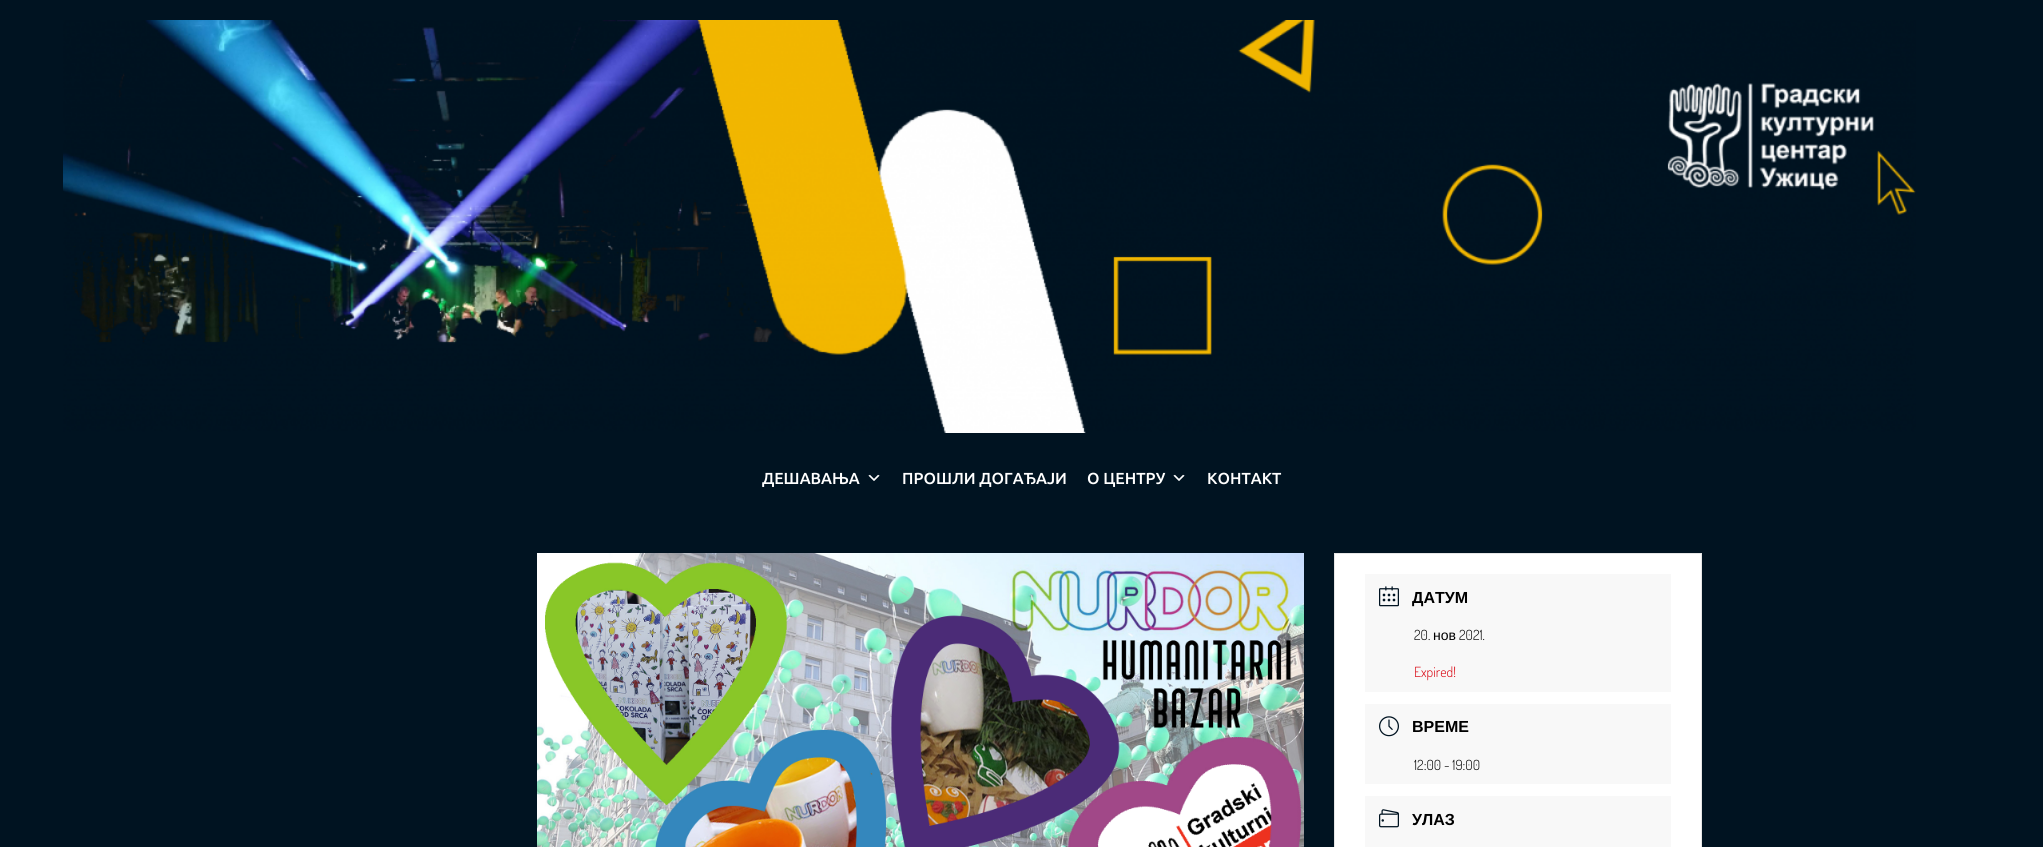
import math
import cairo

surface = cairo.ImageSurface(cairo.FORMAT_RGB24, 2043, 847)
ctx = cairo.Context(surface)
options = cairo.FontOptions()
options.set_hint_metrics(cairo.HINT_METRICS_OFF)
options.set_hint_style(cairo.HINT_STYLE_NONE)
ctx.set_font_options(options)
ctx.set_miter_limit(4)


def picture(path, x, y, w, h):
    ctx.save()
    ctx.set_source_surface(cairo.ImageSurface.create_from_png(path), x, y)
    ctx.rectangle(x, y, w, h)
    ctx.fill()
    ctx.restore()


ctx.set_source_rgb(0, 0.075, 0.129)
ctx.paint()
picture("img1.png", 63, 20, 1853, 413)
ctx.select_font_face("Ubuntu Medium")
ctx.set_font_size(16)
ctx.set_source_rgb(1, 1, 1)
ctx.move_to(762, 484)
ctx.show_text("ДЕШАВАЊА")
picture("img2.png", 868, 474, 12, 7)
ctx.move_to(902, 484)
ctx.show_text("ПРОШЛИ ДОГАЂАЈИ")
ctx.move_to(1087, 484)
ctx.show_text("О ЦЕНТРУ")
picture("img2.png", 1173, 474, 12, 7)
ctx.move_to(1207, 484)
ctx.show_text("КОНТАКТ")
picture("img3.png", 537, 553, 767, 294)
ctx.rectangle(1334.5, 553.5, 367, 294)
ctx.fill_preserve()
ctx.set_source_rgb(0.902, 0.902, 0.902)
ctx.set_line_width(1)
ctx.stroke()
ctx.set_source_rgb(0.969, 0.969, 0.969)
ctx.rectangle(1365, 574, 306, 118)
ctx.fill()
picture("img4.png", 1379, 586, 20, 21)
ctx.select_font_face("Liberation Sans", cairo.FONT_SLANT_NORMAL, cairo.FONT_WEIGHT_BOLD)
ctx.set_source_rgb(0, 0, 0)
ctx.move_to(1412, 603)
ctx.show_text("ДАТУМ")
ctx.select_font_face("Dosis Light")
ctx.set_font_size(14)
ctx.move_to(1414, 640)
ctx.show_text("20.")
ctx.select_font_face("Liberation Sans")
ctx.move_to(1433, 640)
ctx.show_text("нов")
ctx.select_font_face("Dosis Light")
ctx.move_to(1459, 640)
ctx.show_text("2021.")
ctx.set_source_rgb(0.847, 0, 0.047)
ctx.move_to(1414, 677)
ctx.show_text("Expired!")
ctx.set_source_rgb(0.969, 0.969, 0.969)
ctx.rectangle(1365, 704, 306, 80)
ctx.fill()
picture("img5.png", 1379, 716, 20, 21)
ctx.select_font_face("Liberation Sans", cairo.FONT_SLANT_NORMAL, cairo.FONT_WEIGHT_BOLD)
ctx.set_font_size(16)
ctx.set_source_rgb(0, 0, 0)
ctx.move_to(1412, 732)
ctx.show_text("ВРЕМЕ")
ctx.select_font_face("Dosis Light")
ctx.set_font_size(14)
ctx.move_to(1414, 770)
ctx.show_text("12:00 - 19:00")
ctx.set_source_rgb(0.969, 0.969, 0.969)
ctx.rectangle(1365, 796, 306, 51)
ctx.fill()
picture("img6.png", 1379, 809, 20, 19)
ctx.select_font_face("Liberation Sans", cairo.FONT_SLANT_NORMAL, cairo.FONT_WEIGHT_BOLD)
ctx.set_font_size(16)
ctx.set_source_rgb(0, 0, 0)
ctx.move_to(1412, 825)
ctx.show_text("УЛАЗ")
surface.write_to_png("page.png")
